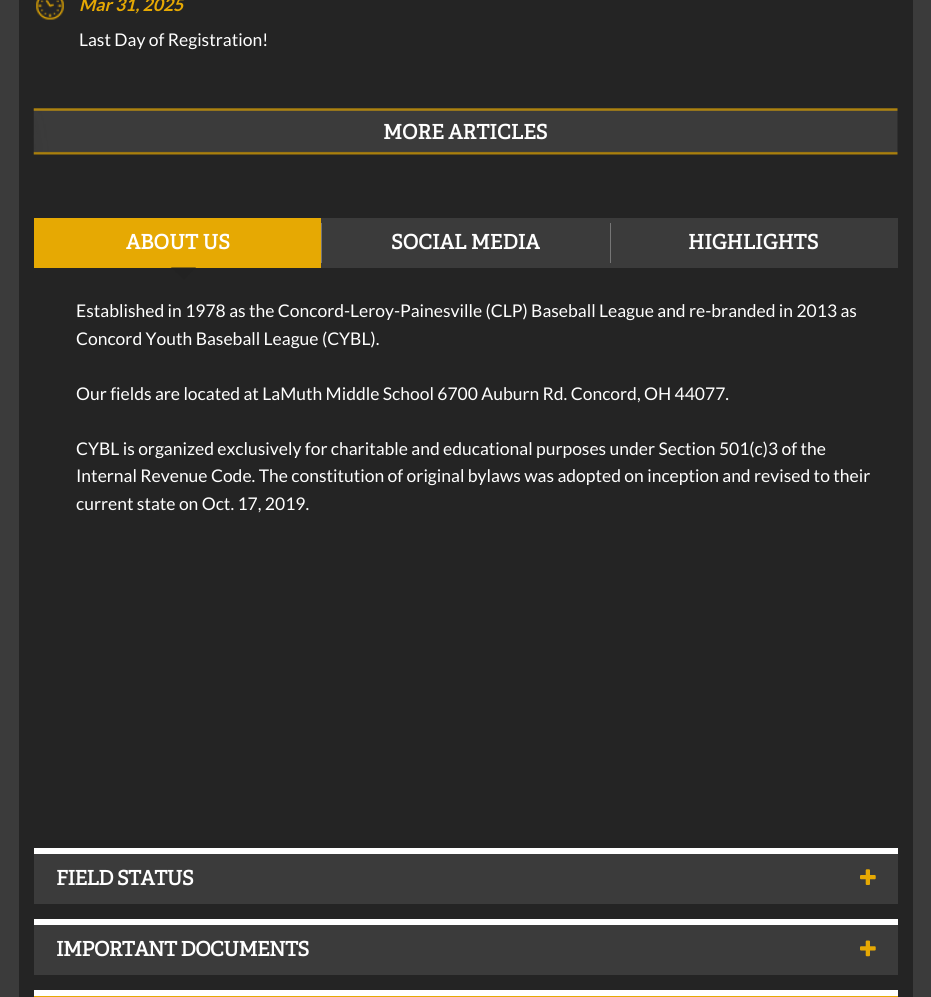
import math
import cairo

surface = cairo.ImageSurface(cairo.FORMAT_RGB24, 931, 997)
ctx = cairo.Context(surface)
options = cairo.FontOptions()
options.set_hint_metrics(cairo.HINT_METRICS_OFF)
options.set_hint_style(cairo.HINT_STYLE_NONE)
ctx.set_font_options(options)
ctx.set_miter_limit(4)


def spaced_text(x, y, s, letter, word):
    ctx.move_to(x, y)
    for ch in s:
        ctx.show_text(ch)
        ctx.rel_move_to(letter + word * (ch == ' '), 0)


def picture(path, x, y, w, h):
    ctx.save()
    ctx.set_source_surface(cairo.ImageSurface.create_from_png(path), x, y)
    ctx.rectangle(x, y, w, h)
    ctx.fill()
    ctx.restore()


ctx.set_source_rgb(0.231, 0.231, 0.231)
ctx.paint()
ctx.set_source_rgb(0.141, 0.141, 0.141)
ctx.rectangle(19, 0, 894, 997)
ctx.fill()
picture("img1.png", 36, 0, 28, 20)
ctx.select_font_face("Lato", cairo.FONT_SLANT_ITALIC, cairo.FONT_WEIGHT_BOLD)
ctx.set_font_size(17.5)
ctx.set_source_rgb(0.902, 0.663, 0.012)
ctx.move_to(79, 11)
ctx.show_text("Mar 31, 2025")
ctx.select_font_face("Lato")
ctx.set_source_rgb(1, 1, 1)
ctx.move_to(79, 46)
ctx.show_text("Last Day of Registration!")
picture("img2.png", 33, 108, 865, 47)
ctx.select_font_face("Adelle", cairo.FONT_SLANT_NORMAL, cairo.FONT_WEIGHT_BOLD)
ctx.set_font_size(20)
ctx.move_to(383, 139)
ctx.show_text("MORE ARTICLES")
ctx.set_source_rgb(0.231, 0.231, 0.231)
ctx.rectangle(321, 218, 577, 50)
ctx.fill()
ctx.set_source_rgb(0.902, 0.663, 0.012)
ctx.rectangle(34, 218, 287, 50)
ctx.fill()
ctx.set_source_rgb(1, 1, 1)
ctx.move_to(126, 249)
ctx.show_text("ABOUT US")
ctx.set_source_rgb(0.463, 0.463, 0.463)
ctx.rectangle(321, 223, 1, 40)
ctx.fill()
ctx.set_source_rgb(0.133, 0.133, 0.133)
ctx.new_path()
ctx.move_to(171, 267.5)
ctx.line_to(196, 267.5)
ctx.line_to(184, 280)
ctx.close_path()
ctx.fill()
ctx.set_source_rgb(1, 1, 1)
ctx.move_to(391, 249)
ctx.show_text("SOCIAL MEDIA")
ctx.set_source_rgb(0.463, 0.463, 0.463)
ctx.rectangle(610, 223, 1, 40)
ctx.fill()
ctx.set_source_rgb(1, 1, 1)
ctx.move_to(688, 249)
ctx.show_text("HIGHLIGHTS")
ctx.select_font_face("Lato")
ctx.set_font_size(17.5)
ctx.move_to(76, 317)
ctx.show_text("Established in 1978 as the Concord-Leroy-Painesville (CLP) Baseball League and re-branded in 2013 as")
ctx.move_to(76, 345)
ctx.show_text("Concord Youth Baseball League (CYBL).")
ctx.move_to(76, 400)
ctx.show_text("Our fields are located at LaMuth Middle School 6700 Auburn Rd. Concord, OH 44077.")
ctx.move_to(76, 455)
ctx.show_text("CYBL is organized exclusively for charitable and educational purposes under Section 501(c)3 of the")
ctx.move_to(76, 482)
ctx.show_text("Internal Revenue Code. The constitution of original bylaws was adopted on inception and revised to their")
ctx.move_to(76, 510)
ctx.show_text("current state on Oct. 17, 2019.")
ctx.set_source_rgb(0.231, 0.231, 0.231)
ctx.rectangle(34, 854, 864, 50)
ctx.fill()
ctx.set_source_rgb(1, 1, 1)
ctx.rectangle(34, 848, 864, 6)
ctx.fill()
ctx.select_font_face("Adelle", cairo.FONT_SLANT_NORMAL, cairo.FONT_WEIGHT_BOLD)
ctx.set_font_size(20)
spaced_text(56, 885, "FIELD STATUS", -0.6, 0)
picture("img3.png", 860, 869, 16, 16)
ctx.set_source_rgb(0.231, 0.231, 0.231)
ctx.rectangle(34, 925, 864, 50)
ctx.fill()
ctx.set_source_rgb(1, 1, 1)
ctx.rectangle(34, 919, 864, 6)
ctx.fill()
spaced_text(56, 956, "IMPORTANT DOCUMENTS", -0.6, 0)
picture("img4.png", 860, 940, 16, 17)
ctx.set_source_rgb(0.902, 0.663, 0.012)
ctx.rectangle(34, 996, 864, 1)
ctx.fill()
ctx.set_source_rgb(1, 1, 1)
ctx.rectangle(34, 990, 864, 6)
ctx.fill()
surface.write_to_png("page.png")
